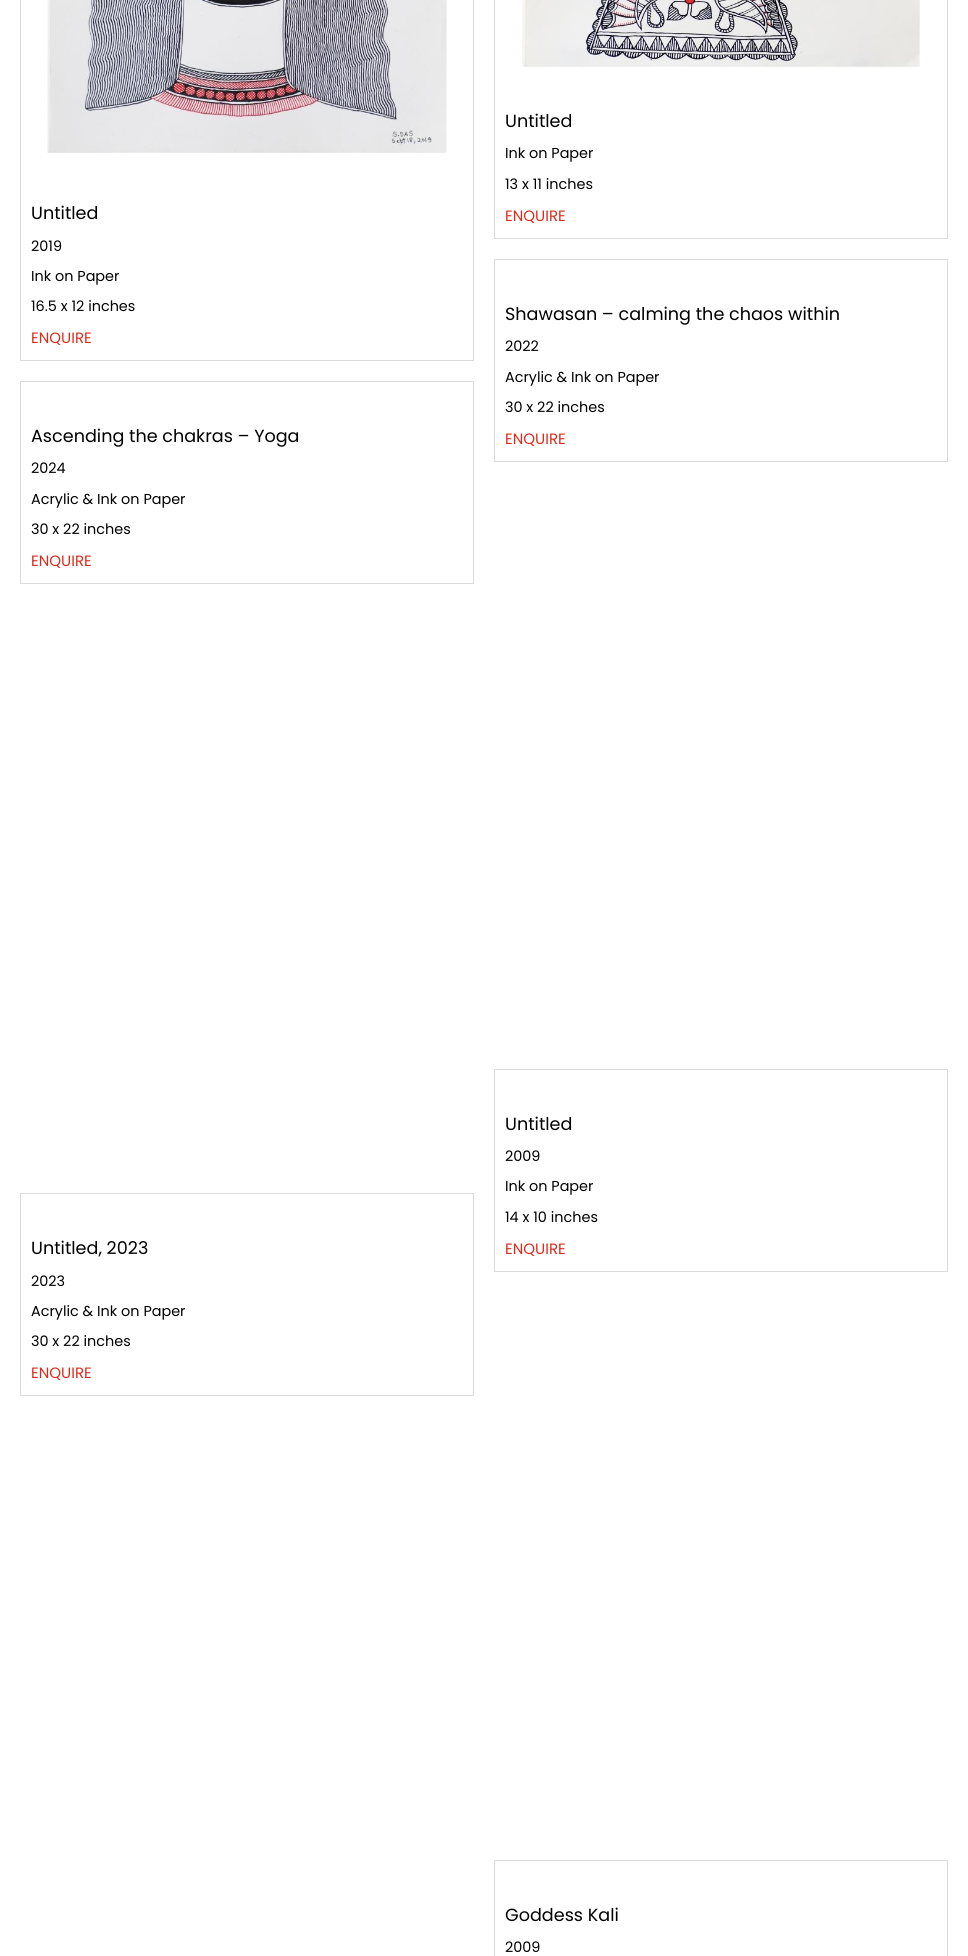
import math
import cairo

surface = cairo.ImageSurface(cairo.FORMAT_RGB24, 968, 1956)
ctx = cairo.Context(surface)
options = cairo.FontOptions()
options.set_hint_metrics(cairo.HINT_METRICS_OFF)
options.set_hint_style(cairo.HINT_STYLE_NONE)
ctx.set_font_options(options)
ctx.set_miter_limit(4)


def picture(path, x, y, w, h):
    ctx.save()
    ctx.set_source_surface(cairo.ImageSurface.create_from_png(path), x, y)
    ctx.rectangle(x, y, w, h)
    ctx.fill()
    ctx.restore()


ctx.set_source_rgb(1, 1, 1)
ctx.paint()
ctx.rectangle(494.5, -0.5, 453, 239)
ctx.set_source_rgb(0.859, 0.859, 0.859)
ctx.set_line_width(1)
ctx.stroke()
picture("img1.png", 522, 0, 398, 69)
ctx.select_font_face("Poppins")
ctx.set_font_size(17.6)
ctx.set_source_rgb(0, 0, 0)
ctx.move_to(505, 127)
ctx.show_text("Untitled")
ctx.set_font_size(14.4)
ctx.move_to(505, 158)
ctx.show_text("Ink on Paper")
ctx.move_to(505, 189)
ctx.show_text("13 x 11 inches")
ctx.set_font_size(15)
ctx.set_source_rgb(0.863, 0.169, 0.11)
ctx.move_to(505, 221)
ctx.show_text("ENQUIRE")
ctx.rectangle(20.5, -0.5, 453, 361)
ctx.set_source_rgb(0.859, 0.859, 0.859)
ctx.stroke()
picture("img2.png", 47, 0, 400, 153)
ctx.set_font_size(17.6)
ctx.set_source_rgb(0, 0, 0)
ctx.move_to(31, 219)
ctx.show_text("Untitled")
ctx.set_font_size(14.4)
ctx.move_to(31, 251)
ctx.show_text("2019")
ctx.move_to(31, 281)
ctx.show_text("Ink on Paper")
ctx.move_to(31, 311)
ctx.show_text("16.5 x 12 inches")
ctx.set_font_size(15)
ctx.set_source_rgb(0.863, 0.169, 0.11)
ctx.move_to(31, 343)
ctx.show_text("ENQUIRE")
ctx.rectangle(494.5, 259.5, 453, 202)
ctx.set_source_rgb(0.859, 0.859, 0.859)
ctx.stroke()
ctx.set_font_size(17.6)
ctx.set_source_rgb(0, 0, 0)
ctx.move_to(505, 320)
ctx.show_text("Shawasan – calming the chaos within")
ctx.set_font_size(14.4)
ctx.move_to(505, 351)
ctx.show_text("2022")
ctx.move_to(505, 382)
ctx.show_text("Acrylic & Ink on Paper")
ctx.move_to(505, 412)
ctx.show_text("30 x 22 inches")
ctx.set_font_size(15)
ctx.set_source_rgb(0.863, 0.169, 0.11)
ctx.move_to(505, 444)
ctx.show_text("ENQUIRE")
ctx.rectangle(20.5, 381.5, 453, 202)
ctx.set_source_rgb(0.859, 0.859, 0.859)
ctx.stroke()
ctx.set_font_size(17.6)
ctx.set_source_rgb(0, 0, 0)
ctx.move_to(31, 442)
ctx.show_text("Ascending the chakras – Yoga")
ctx.set_font_size(14.4)
ctx.move_to(31, 473)
ctx.show_text("2024")
ctx.move_to(31, 504)
ctx.show_text("Acrylic & Ink on Paper")
ctx.move_to(31, 534)
ctx.show_text("30 x 22 inches")
ctx.set_font_size(15)
ctx.set_source_rgb(0.863, 0.169, 0.11)
ctx.move_to(31, 566)
ctx.show_text("ENQUIRE")
ctx.rectangle(494.5, 1069.5, 453, 202)
ctx.set_source_rgb(0.859, 0.859, 0.859)
ctx.stroke()
ctx.set_font_size(17.6)
ctx.set_source_rgb(0, 0, 0)
ctx.move_to(505, 1130)
ctx.show_text("Untitled")
ctx.set_font_size(14.4)
ctx.move_to(505, 1161)
ctx.show_text("2009")
ctx.move_to(505, 1191)
ctx.show_text("Ink on Paper")
ctx.move_to(505, 1222)
ctx.show_text("14 x 10 inches")
ctx.set_font_size(15)
ctx.set_source_rgb(0.863, 0.169, 0.11)
ctx.move_to(505, 1254)
ctx.show_text("ENQUIRE")
ctx.rectangle(20.5, 1193.5, 453, 202)
ctx.set_source_rgb(0.859, 0.859, 0.859)
ctx.stroke()
ctx.set_font_size(17.6)
ctx.set_source_rgb(0, 0, 0)
ctx.move_to(31, 1254)
ctx.show_text("Untitled, 2023")
ctx.set_font_size(14.4)
ctx.move_to(31, 1286)
ctx.show_text("2023")
ctx.move_to(31, 1316)
ctx.show_text("Acrylic & Ink on Paper")
ctx.move_to(31, 1346)
ctx.show_text("30 x 22 inches")
ctx.set_font_size(15)
ctx.set_source_rgb(0.863, 0.169, 0.11)
ctx.move_to(31, 1378)
ctx.show_text("ENQUIRE")
ctx.rectangle(494.5, 1860.5, 453, 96)
ctx.set_source_rgb(0.859, 0.859, 0.859)
ctx.stroke()
ctx.set_font_size(17.6)
ctx.set_source_rgb(0, 0, 0)
ctx.move_to(505, 1921)
ctx.show_text("Goddess Kali")
ctx.set_font_size(14.4)
ctx.move_to(505, 1952)
ctx.show_text("2009")
surface.write_to_png("page.png")
